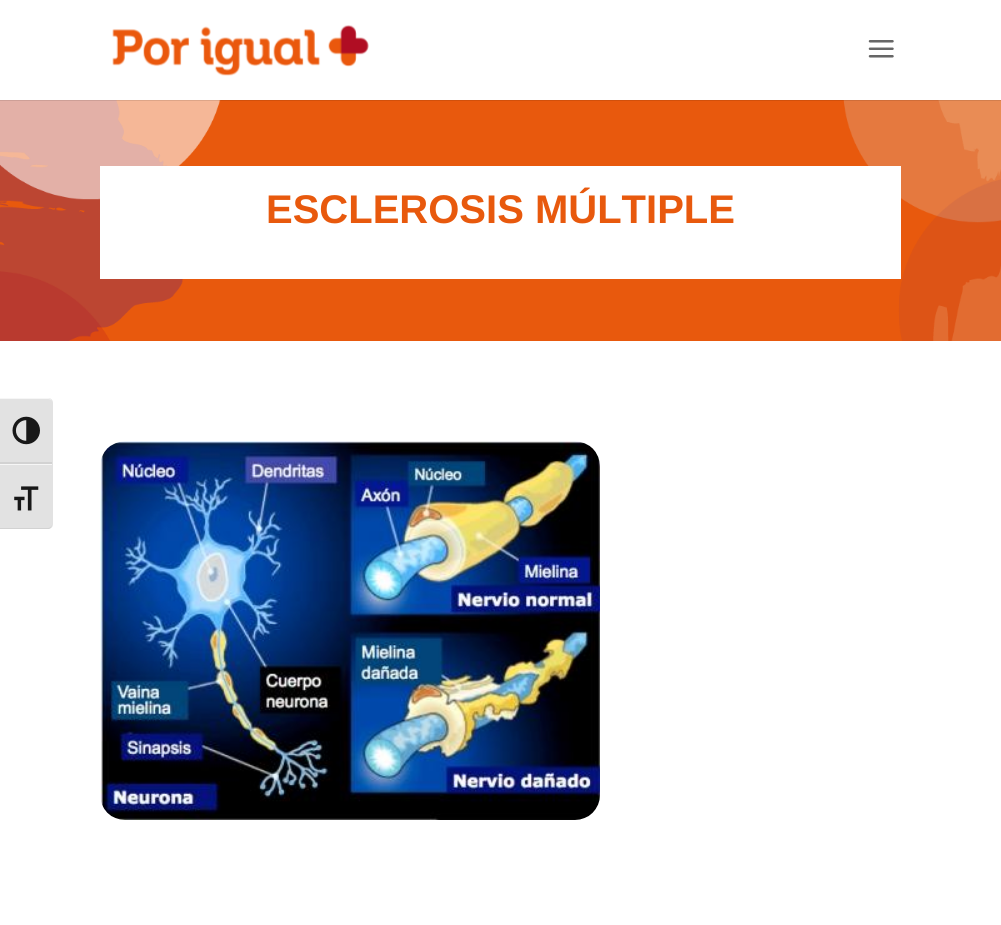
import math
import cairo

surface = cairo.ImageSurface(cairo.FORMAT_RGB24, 1001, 925)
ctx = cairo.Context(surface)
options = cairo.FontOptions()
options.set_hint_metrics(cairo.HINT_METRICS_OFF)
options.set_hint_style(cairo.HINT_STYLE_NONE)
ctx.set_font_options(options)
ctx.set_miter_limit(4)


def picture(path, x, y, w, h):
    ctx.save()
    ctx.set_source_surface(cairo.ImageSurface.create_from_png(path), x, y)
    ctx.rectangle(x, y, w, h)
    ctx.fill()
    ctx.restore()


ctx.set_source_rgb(0.91, 0.349, 0.051)
ctx.paint()
picture("img3.png", 0, 100, 1001, 241)
ctx.set_source_rgba(0, 0, 0, 0.1)
ctx.rectangle(0, 100, 1001, 1)
ctx.fill()
ctx.set_source_rgb(1, 1, 1)
ctx.rectangle(0, 0, 1001, 100)
ctx.fill()
picture("img1.png", 112, 25, 257, 51)
picture("img2.png", 868, 40, 26, 18)
ctx.rectangle(100, 166, 801, 113)
ctx.fill()
ctx.select_font_face("Liberation Sans", cairo.FONT_SLANT_NORMAL, cairo.FONT_WEIGHT_BOLD)
ctx.set_font_size(40)
ctx.set_source_rgb(0.91, 0.349, 0.051)
ctx.move_to(266, 223)
ctx.show_text("ESCLEROSIS MÚLTIPLE")
ctx.set_source_rgb(1, 1, 1)
ctx.rectangle(0, 341, 1001, 584)
ctx.fill()
picture("img4.png", 100, 441, 500, 379)
ctx.set_source_rgb(0.886, 0.886, 0.886)
ctx.new_path()
ctx.move_to(0, 398)
ctx.line_to(48, 398)
ctx.curve_to(51, 398, 53, 400, 53, 403)
ctx.line_to(53, 464)
ctx.line_to(0, 464)
ctx.close_path()
ctx.fill()
ctx.set_source_rgb(0.961, 0.961, 0.961)
ctx.new_path()
ctx.move_to(0, 399)
ctx.line_to(48, 399)
ctx.curve_to(50, 399, 52, 400, 52, 402)
ctx.curve_to(52, 400, 50, 398, 48, 398)
ctx.line_to(0, 398)
ctx.close_path()
ctx.fill()
ctx.set_source_rgb(0.824, 0.824, 0.824)
ctx.rectangle(0, 462, 52, 2)
ctx.fill()
picture("img5.png", 12, 416, 28, 29)
ctx.set_source_rgb(0.886, 0.886, 0.886)
ctx.new_path()
ctx.move_to(0, 464)
ctx.line_to(53, 464)
ctx.line_to(53, 524)
ctx.curve_to(53, 527, 51, 529, 48, 529)
ctx.line_to(0, 529)
ctx.close_path()
ctx.fill()
ctx.set_source_rgb(0.961, 0.961, 0.961)
ctx.rectangle(0, 464, 52, 1)
ctx.fill()
ctx.set_source_rgb(0.824, 0.824, 0.824)
ctx.new_path()
ctx.move_to(49, 529)
ctx.curve_to(51, 528, 52, 526, 52, 524)
ctx.curve_to(52, 526, 50, 528, 48, 528)
ctx.line_to(0, 528)
ctx.line_to(0, 529)
ctx.close_path()
ctx.fill()
picture("img6.png", 14, 486, 25, 25)
surface.write_to_png("page.png")
